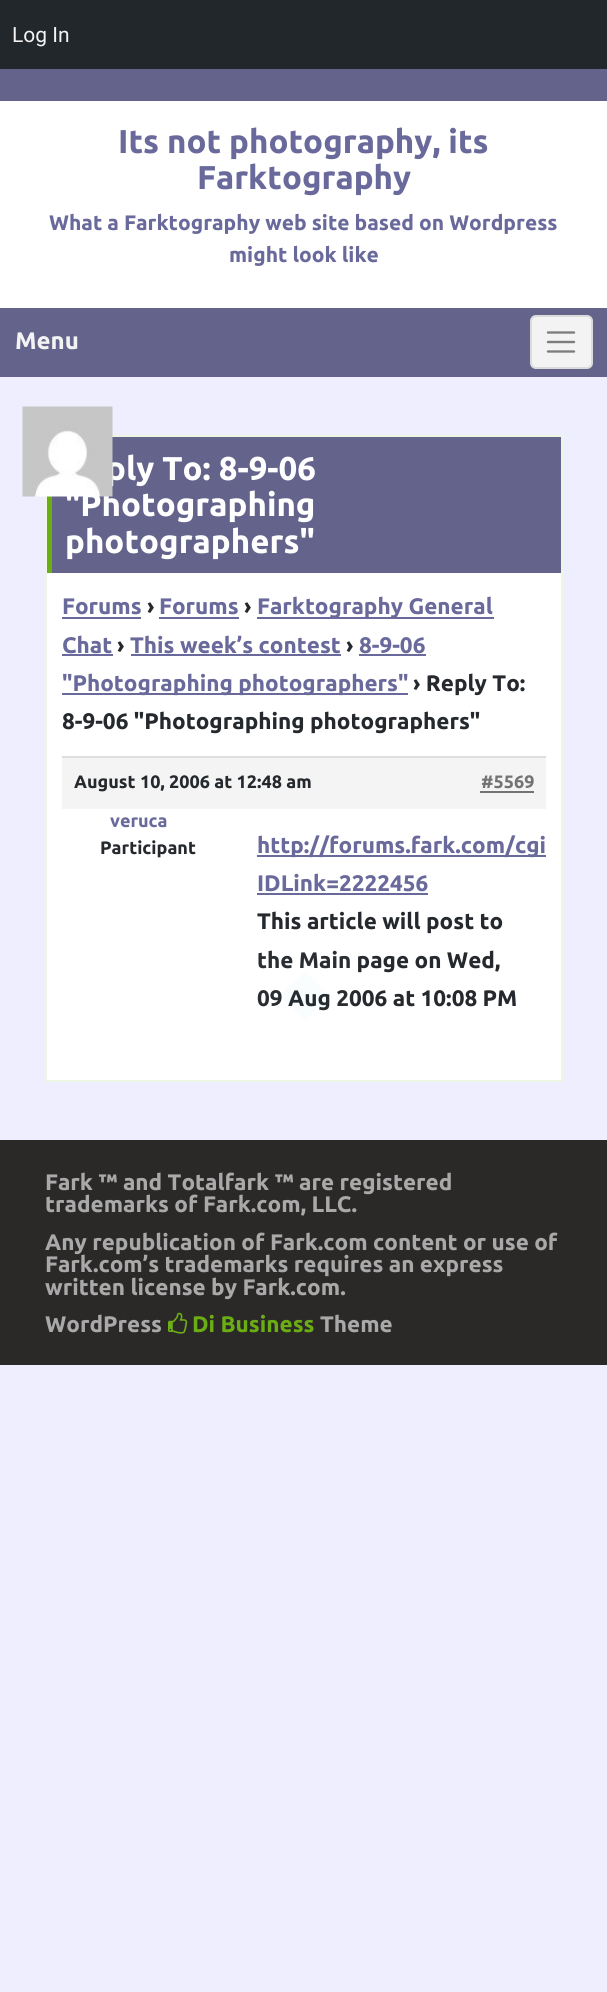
import math
import cairo

surface = cairo.ImageSurface(cairo.FORMAT_RGB24, 607, 1992)
ctx = cairo.Context(surface)
options = cairo.FontOptions()
options.set_hint_metrics(cairo.HINT_METRICS_OFF)
options.set_hint_style(cairo.HINT_STYLE_NONE)
ctx.set_font_options(options)
ctx.set_miter_limit(4)


def round_rect(x, y, w, h, r):
    ctx.new_sub_path()
    for i, (u, v) in enumerate([(x + w - r, y + h - r), (x + r, y + h - r), (x + r, y + r), (x + w - r, y + r)]):
        ctx.arc(u, v, r, i * math.pi / 2, (i + 1) * math.pi / 2)
    ctx.close_path()


def picture(path, x, y, w, h):
    ctx.save()
    ctx.set_source_surface(cairo.ImageSurface.create_from_png(path), x, y)
    ctx.rectangle(x, y, w, h)
    ctx.fill()
    ctx.restore()


ctx.set_source_rgb(0.933, 0.933, 1)
ctx.paint()
ctx.set_source_rgb(0.133, 0.153, 0.169)
ctx.rectangle(0, 0, 607, 69)
ctx.fill()
ctx.select_font_face("Roboto")
ctx.set_font_size(21)
ctx.set_source_rgb(0.953, 0.953, 0.953)
ctx.move_to(12, 42)
ctx.show_text("Log In")
ctx.set_source_rgb(0.388, 0.388, 0.545)
ctx.rectangle(0, 69, 607, 32)
ctx.fill()
ctx.set_source_rgb(1, 1, 1)
ctx.rectangle(0, 101, 607, 207)
ctx.fill()
ctx.select_font_face("Ubuntu", cairo.FONT_SLANT_NORMAL, cairo.FONT_WEIGHT_BOLD)
ctx.set_font_size(33)
ctx.set_source_rgb(0.412, 0.412, 0.608)
ctx.move_to(118, 153)
ctx.show_text("Its not photography, its")
ctx.move_to(197, 189)
ctx.show_text("Farktography")
ctx.set_font_size(21)
ctx.move_to(49, 230)
ctx.show_text("What a Farktography web site based on Wordpress")
ctx.move_to(229, 262)
ctx.show_text("might look like")
ctx.set_source_rgb(0.388, 0.388, 0.545)
ctx.rectangle(0, 308, 607, 69)
ctx.fill()
ctx.set_font_size(24)
ctx.set_source_rgb(0.953, 0.953, 0.953)
ctx.move_to(15, 349)
ctx.show_text("Menu")
round_rect(530, 315, 63, 54, 6)
ctx.fill()
round_rect(531, 316, 61, 52, 5)
ctx.set_source_rgba(0.02, 0.02, 0.02, 0.1)
ctx.stroke()
ctx.new_path()
ctx.move_to(548, 332.5)
ctx.line_to(574, 332.5)
ctx.move_to(548, 342)
ctx.line_to(574, 342)
ctx.move_to(548, 351.5)
ctx.line_to(574, 351.5)
ctx.set_source_rgb(0.49, 0.49, 0.49)
ctx.set_line_width(2.4)
ctx.set_line_cap(cairo.LINE_CAP_ROUND)
ctx.stroke()
ctx.set_source_rgb(1, 1, 1)
ctx.rectangle(47, 573, 514, 507)
ctx.fill()
ctx.rectangle(46, 436, 516, 645)
ctx.set_source_rgb(0.929, 0.961, 0.89)
ctx.set_line_width(2)
ctx.set_line_cap(cairo.LINE_CAP_BUTT)
ctx.stroke()
ctx.set_source_rgb(0.388, 0.388, 0.545)
ctx.rectangle(52, 437, 509, 136)
ctx.fill()
ctx.set_source_rgb(0.42, 0.682, 0.082)
ctx.rectangle(47, 496, 5, 77)
ctx.fill()
ctx.set_font_size(33)
ctx.set_source_rgb(1, 1, 1)
ctx.move_to(106, 480)
ctx.show_text("ply To: 8-9-06")
ctx.move_to(65, 516)
ctx.show_text("\"Photographing")
ctx.move_to(65, 553)
ctx.show_text("photographers\"")
ctx.set_font_size(22.5)
ctx.set_source_rgb(0.412, 0.412, 0.608)
ctx.move_to(62, 614)
ctx.show_text("Forums")
ctx.rectangle(62, 617, 79, 2)
ctx.fill()
ctx.set_source_rgb(0.145, 0.161, 0.176)
ctx.move_to(147, 614)
ctx.show_text("›")
ctx.set_source_rgb(0.412, 0.412, 0.608)
ctx.move_to(159, 614)
ctx.show_text("Forums")
ctx.rectangle(159, 617, 80, 2)
ctx.fill()
ctx.set_source_rgb(0.145, 0.161, 0.176)
ctx.move_to(244, 614)
ctx.show_text("›")
ctx.set_source_rgb(0.412, 0.412, 0.608)
ctx.rectangle(257, 617, 237, 2)
ctx.fill()
ctx.move_to(257, 614)
ctx.show_text("Farktography General")
ctx.move_to(62, 653)
ctx.show_text("Chat")
ctx.rectangle(62, 654, 51, 2)
ctx.fill()
ctx.set_source_rgb(0.145, 0.161, 0.176)
ctx.move_to(117, 653)
ctx.show_text("›")
ctx.set_source_rgb(0.412, 0.412, 0.608)
ctx.move_to(130, 653)
ctx.show_text("This week’s contest")
ctx.rectangle(131, 654, 210, 2)
ctx.fill()
ctx.set_source_rgb(0.145, 0.161, 0.176)
ctx.move_to(346, 653)
ctx.show_text("›")
ctx.set_source_rgb(0.412, 0.412, 0.608)
ctx.move_to(359, 653)
ctx.show_text("8-9-06")
ctx.rectangle(359, 654, 67, 2)
ctx.fill()
ctx.rectangle(62, 693, 346, 2)
ctx.fill()
ctx.move_to(62, 691)
ctx.show_text("\"Photographing photographers\"")
ctx.set_source_rgb(0.145, 0.161, 0.176)
ctx.move_to(413, 691)
ctx.show_text("› Reply To:")
ctx.move_to(62, 729)
ctx.show_text("8-9-06 \"Photographing photographers\"")
ctx.set_source_rgb(0.957, 0.957, 0.957)
ctx.rectangle(62, 758, 484, 51)
ctx.fill()
ctx.set_source_rgb(0.871, 0.871, 0.871)
ctx.rectangle(62, 756, 484, 2)
ctx.fill()
ctx.set_font_size(18)
ctx.set_source_rgb(0.145, 0.161, 0.176)
ctx.move_to(74, 788)
ctx.show_text("August 10, 2006 at 12:48 am")
ctx.set_source_rgb(0.451, 0.451, 0.451)
ctx.move_to(481, 788)
ctx.show_text("#5569")
ctx.rectangle(480, 791, 54, 2)
ctx.fill()
picture("img1.png", 22, 406, 91, 91)
ctx.set_source_rgb(0.412, 0.412, 0.608)
ctx.move_to(110, 827)
ctx.show_text("veruca")
ctx.set_source_rgb(0.145, 0.161, 0.176)
ctx.move_to(100, 854)
ctx.show_text("Participant")
ctx.set_source_rgb(0.412, 0.412, 0.608)
ctx.rectangle(257, 855, 289, 2)
ctx.fill()
ctx.set_font_size(22.5)
ctx.move_to(257, 853)
ctx.show_text("http://forums.fark.com/cgi")
ctx.move_to(257, 891)
ctx.show_text("IDLink=2222456")
ctx.rectangle(257, 893, 171, 2)
ctx.fill()
ctx.set_source_rgb(0.145, 0.161, 0.176)
ctx.move_to(257, 929)
ctx.show_text("This article will post to")
ctx.move_to(257, 968)
ctx.show_text("the Main page on Wed,")
ctx.move_to(257, 1006)
ctx.show_text("09 Aug 2006 at 10:08 PM")
picture("img2.png", 258, 951, 94, 69)
ctx.set_source_rgb(0.169, 0.157, 0.157)
ctx.rectangle(0, 1140, 607, 225)
ctx.fill()
ctx.set_source_rgb(0.663, 0.663, 0.663)
ctx.move_to(45, 1190)
ctx.show_text("Fark ™ and Totalfark ™ are registered")
ctx.move_to(45, 1212)
ctx.show_text("trademarks of Fark.com, LLC.")
ctx.move_to(45, 1250)
ctx.show_text("Any republication of Fark.com content or use of")
ctx.move_to(45, 1272)
ctx.show_text("Fark.com’s trademarks requires an express")
ctx.move_to(45, 1295)
ctx.show_text("written license by Fark.com.")
ctx.move_to(45, 1332)
ctx.show_text("WordPress")
picture("img3.png", 168, 1312, 20, 22)
ctx.set_source_rgb(0.42, 0.682, 0.082)
ctx.move_to(192, 1332)
ctx.show_text("Di Business")
ctx.set_source_rgb(0.663, 0.663, 0.663)
ctx.move_to(320, 1332)
ctx.show_text("Theme")
surface.write_to_png("page.png")
